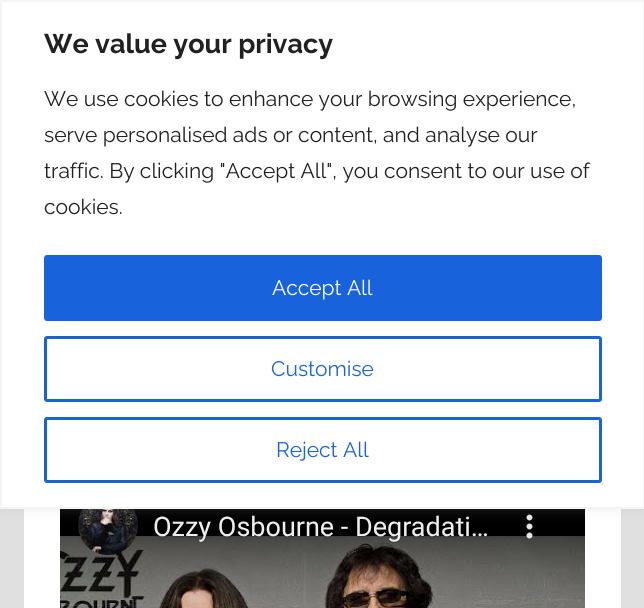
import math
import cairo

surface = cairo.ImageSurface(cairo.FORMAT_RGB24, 644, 608)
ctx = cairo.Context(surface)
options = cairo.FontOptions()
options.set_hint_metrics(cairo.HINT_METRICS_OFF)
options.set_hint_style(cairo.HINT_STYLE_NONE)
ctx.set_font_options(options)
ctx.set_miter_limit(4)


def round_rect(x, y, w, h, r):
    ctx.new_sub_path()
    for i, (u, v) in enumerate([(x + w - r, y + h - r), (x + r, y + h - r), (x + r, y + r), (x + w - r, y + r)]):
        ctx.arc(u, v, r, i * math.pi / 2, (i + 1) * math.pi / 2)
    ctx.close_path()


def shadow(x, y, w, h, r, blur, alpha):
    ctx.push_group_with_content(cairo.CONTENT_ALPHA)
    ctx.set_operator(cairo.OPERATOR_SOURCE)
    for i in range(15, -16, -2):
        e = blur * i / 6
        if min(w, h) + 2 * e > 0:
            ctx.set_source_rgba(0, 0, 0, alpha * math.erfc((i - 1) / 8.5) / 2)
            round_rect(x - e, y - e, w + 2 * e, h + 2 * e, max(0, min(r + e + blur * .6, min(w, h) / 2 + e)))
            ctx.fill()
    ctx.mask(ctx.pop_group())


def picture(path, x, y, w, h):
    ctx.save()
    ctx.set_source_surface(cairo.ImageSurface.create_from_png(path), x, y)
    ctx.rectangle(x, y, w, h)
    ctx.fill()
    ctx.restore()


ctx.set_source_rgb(0.878, 0.878, 0.878)
ctx.paint()
ctx.set_source_rgb(1, 1, 1)
ctx.rectangle(24, 509, 597, 99)
ctx.fill()
picture("img1.png", 60, 509, 525, 99)
ctx.set_source_rgb(0.675, 0.671, 0.671)
shadow(0, -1, 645, 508, 0, 7.5, 0.3)
ctx.set_source_rgb(1, 1, 1)
ctx.rectangle(1, 1, 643, 507)
ctx.fill_preserve()
ctx.set_source_rgb(0.957, 0.957, 0.957)
ctx.stroke()
ctx.select_font_face("Raleway", cairo.FONT_SLANT_NORMAL, cairo.FONT_WEIGHT_BOLD)
ctx.set_font_size(27)
ctx.set_source_rgb(0.129, 0.129, 0.129)
ctx.move_to(44, 53)
ctx.show_text("We value your privacy")
ctx.select_font_face("Raleway")
ctx.set_font_size(21)
ctx.move_to(44, 106)
ctx.show_text("We use cookies to enhance your browsing experience,")
ctx.move_to(44, 142)
ctx.show_text("serve personalised ads or content, and analyse our")
ctx.move_to(44, 178)
ctx.show_text("traffic. By clicking \"Accept All\", you consent to our use of")
ctx.move_to(44, 214)
ctx.show_text("cookies.")
ctx.set_source_rgb(0.094, 0.388, 0.863)
round_rect(45.5, 256.5, 555, 63, 1.5)
ctx.fill_preserve()
ctx.set_line_width(3)
ctx.stroke()
ctx.set_source_rgb(1, 1, 1)
ctx.move_to(272, 295)
ctx.show_text("Accept All")
round_rect(45.5, 337.5, 555, 63, 1.5)
ctx.set_source_rgb(0.094, 0.388, 0.863)
ctx.stroke()
ctx.move_to(271, 376)
ctx.show_text("Customise")
round_rect(45.5, 418.5, 555, 63, 1.5)
ctx.stroke()
ctx.move_to(276, 457)
ctx.show_text("Reject All")
surface.write_to_png("page.png")
